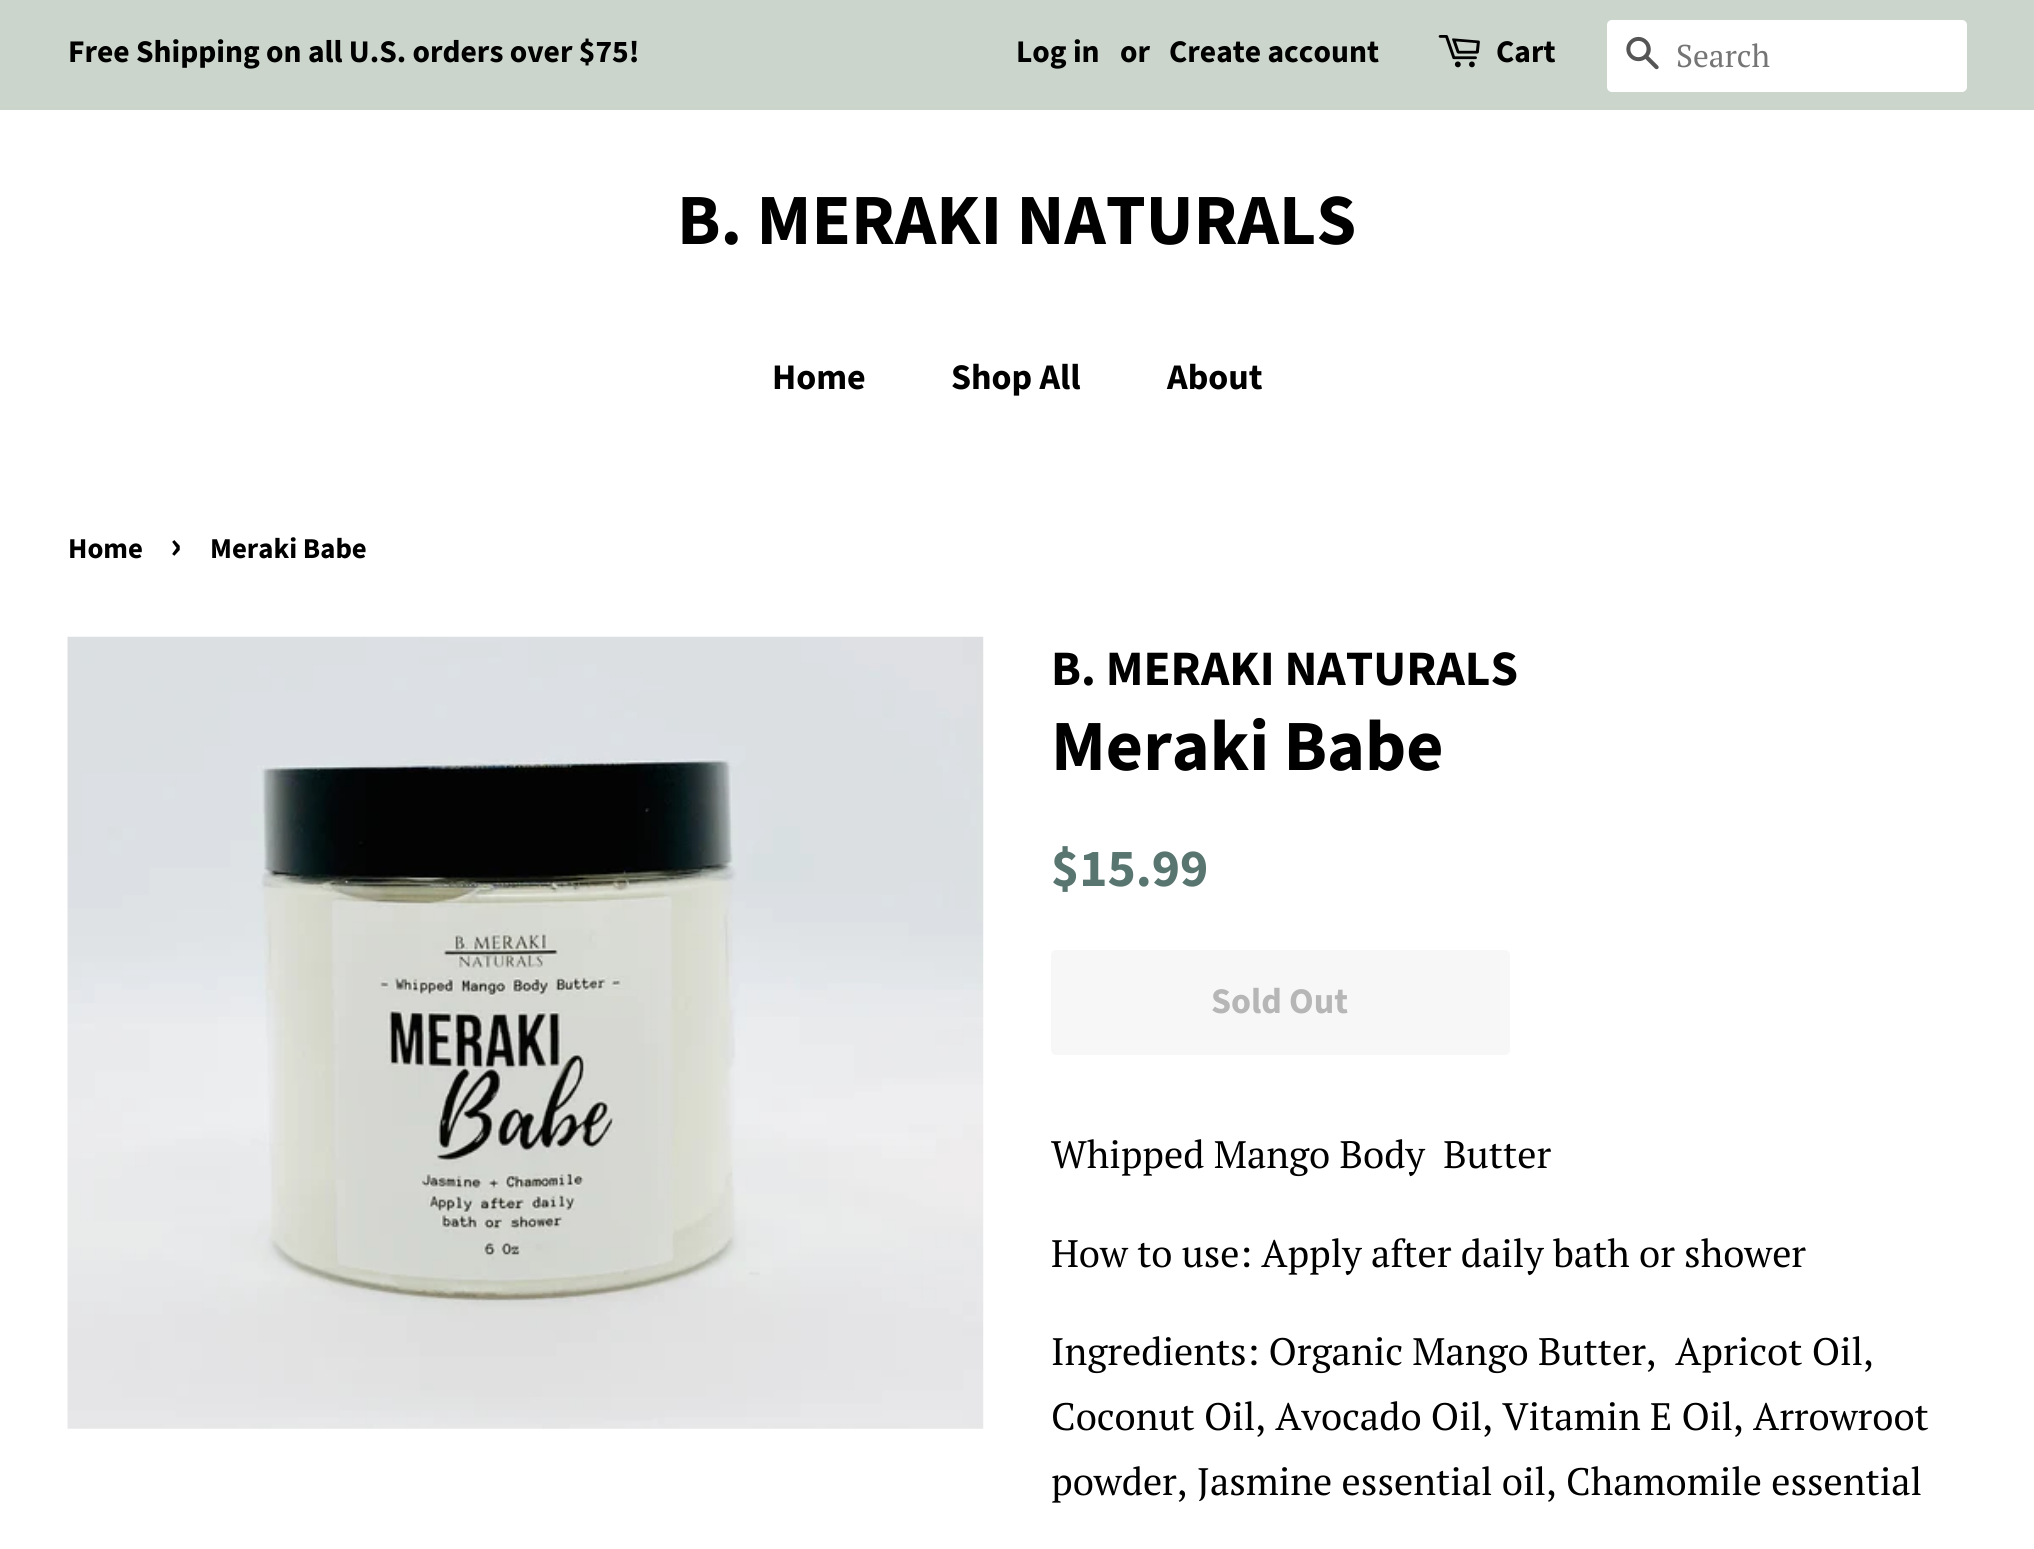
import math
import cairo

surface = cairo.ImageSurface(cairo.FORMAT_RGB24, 2034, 1549)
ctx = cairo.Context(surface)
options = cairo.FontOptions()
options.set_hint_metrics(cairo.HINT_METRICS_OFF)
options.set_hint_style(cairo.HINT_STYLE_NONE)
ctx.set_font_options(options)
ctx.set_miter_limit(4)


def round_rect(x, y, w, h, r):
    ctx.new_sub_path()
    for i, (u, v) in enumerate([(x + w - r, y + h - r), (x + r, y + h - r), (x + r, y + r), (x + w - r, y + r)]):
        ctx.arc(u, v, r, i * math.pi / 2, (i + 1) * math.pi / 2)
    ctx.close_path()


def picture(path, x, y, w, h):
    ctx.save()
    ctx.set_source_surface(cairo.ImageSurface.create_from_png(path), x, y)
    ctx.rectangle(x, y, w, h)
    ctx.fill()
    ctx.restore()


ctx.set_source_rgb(1, 1, 1)
ctx.paint()
ctx.set_source_rgb(0.796, 0.835, 0.8)
ctx.rectangle(0, 0, 2034, 110)
ctx.fill()
ctx.select_font_face("Source Sans Pro", cairo.FONT_SLANT_NORMAL, cairo.FONT_WEIGHT_BOLD)
ctx.set_font_size(31.5)
ctx.set_source_rgb(0, 0, 0)
ctx.move_to(68, 62)
ctx.show_text("Free Shipping on all U.S. orders over $75!")
ctx.move_to(1016, 62)
ctx.show_text("Log in")
ctx.move_to(1120, 62)
ctx.show_text("or")
ctx.move_to(1169, 62)
ctx.show_text("Create account")
picture("img1.png", 1438, 35, 42, 33)
ctx.move_to(1496, 62)
ctx.show_text("Cart")
ctx.set_source_rgb(1, 1, 1)
round_rect(1607, 20, 360, 72, 5)
ctx.fill()
picture("img2.png", 1626, 36, 33, 34)
ctx.select_font_face("PT Serif")
ctx.set_source_rgb(0.459, 0.459, 0.459)
ctx.move_to(1676, 67)
ctx.show_text("Search")
ctx.select_font_face("Source Sans Pro", cairo.FONT_SLANT_NORMAL, cairo.FONT_WEIGHT_BOLD)
ctx.set_font_size(72)
ctx.set_source_rgb(0, 0, 0)
ctx.move_to(677, 244)
ctx.show_text("B. MERAKI NATURALS")
ctx.set_font_size(36)
ctx.move_to(772, 389)
ctx.show_text("Home")
ctx.move_to(951, 389)
ctx.show_text("Shop All")
ctx.move_to(1167, 389)
ctx.show_text("About")
ctx.set_font_size(28.75)
ctx.move_to(68, 558)
ctx.show_text("Home")
ctx.set_font_size(40)
ctx.move_to(170, 558)
ctx.show_text("›")
ctx.set_font_size(28.75)
ctx.move_to(210, 558)
ctx.show_text("Meraki Babe")
picture("img3.png", 67, 636, 917, 793)
ctx.set_font_size(49.5)
ctx.move_to(1051, 685)
ctx.show_text("B. MERAKI NATURALS")
ctx.set_font_size(72)
ctx.move_to(1051, 770)
ctx.show_text("Meraki Babe")
ctx.set_font_size(53.5)
ctx.set_source_rgb(0.349, 0.459, 0.435)
ctx.move_to(1051, 886)
ctx.show_text("$15.99")
ctx.set_source_rgb(0.965, 0.965, 0.965)
round_rect(1051, 950, 459, 105, 5)
ctx.fill()
ctx.set_font_size(36)
ctx.set_source_rgb(0.714, 0.714, 0.714)
ctx.move_to(1211, 1013)
ctx.show_text("Sold Out")
ctx.select_font_face("PT Serif")
ctx.set_font_size(38.25)
ctx.set_source_rgb(0, 0, 0)
ctx.move_to(1051, 1168)
ctx.show_text("Whipped Mango Body  Butter")
ctx.move_to(1051, 1267)
ctx.show_text("How to use: Apply after daily bath or shower")
ctx.move_to(1051, 1365)
ctx.show_text("Ingredients: Organic Mango Butter,  Apricot Oil,")
ctx.move_to(1051, 1430)
ctx.show_text("Coconut Oil, Avocado Oil, Vitamin E Oil, Arrowroot")
ctx.move_to(1051, 1495)
ctx.show_text("powder, Jasmine essential oil, Chamomile essential")
surface.write_to_png("page.png")
